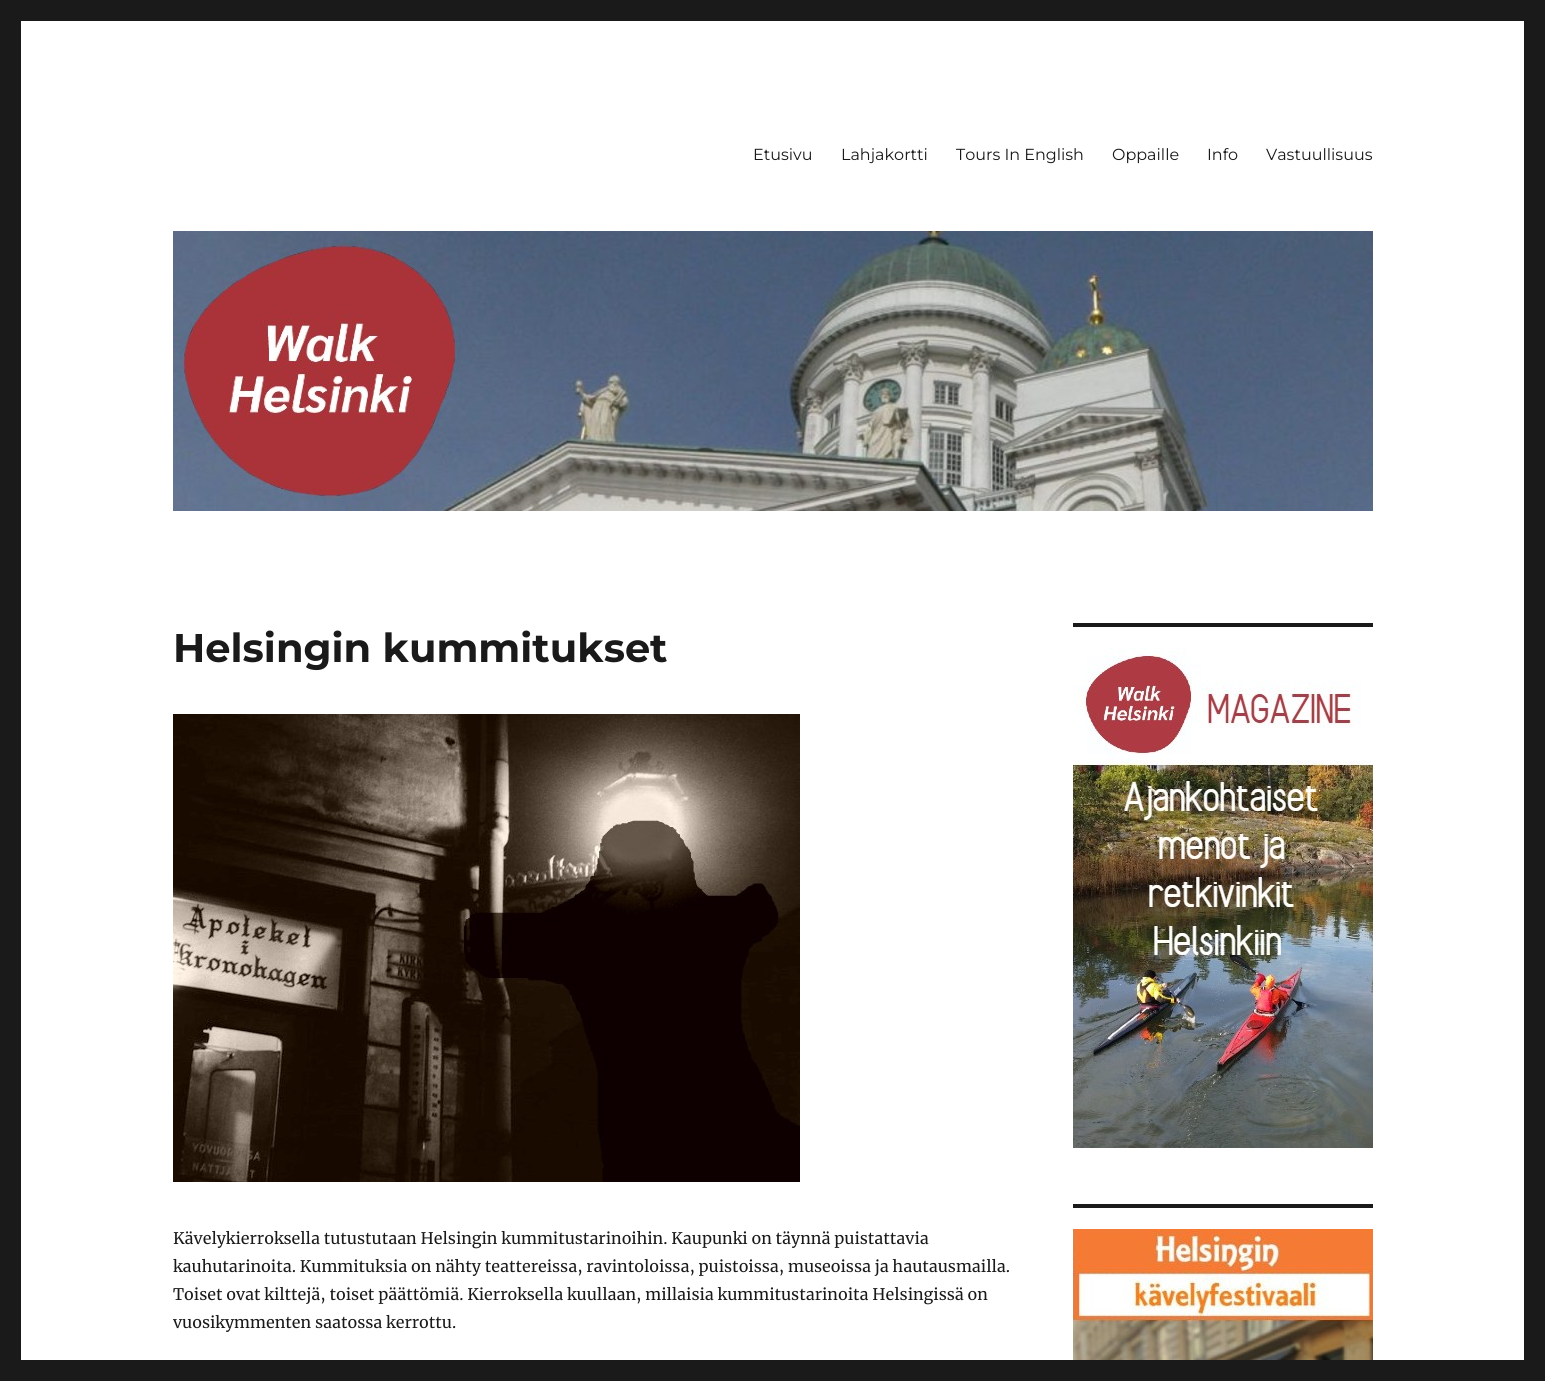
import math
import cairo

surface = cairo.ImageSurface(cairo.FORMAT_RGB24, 1545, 1381)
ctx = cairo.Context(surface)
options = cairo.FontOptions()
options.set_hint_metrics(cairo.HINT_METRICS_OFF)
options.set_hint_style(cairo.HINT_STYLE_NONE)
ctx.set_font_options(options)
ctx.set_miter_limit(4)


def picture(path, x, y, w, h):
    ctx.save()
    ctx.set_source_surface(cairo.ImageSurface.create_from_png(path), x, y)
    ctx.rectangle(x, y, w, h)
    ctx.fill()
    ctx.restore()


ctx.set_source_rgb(0.102, 0.102, 0.102)
ctx.paint()
ctx.set_source_rgb(1, 1, 1)
ctx.rectangle(21, 21, 1503, 1339)
ctx.fill()
ctx.select_font_face("Montserrat Thin")
ctx.set_font_size(16)
ctx.set_source_rgb(0.102, 0.102, 0.102)
ctx.move_to(753, 160)
ctx.show_text("Etusivu")
ctx.move_to(841, 160)
ctx.show_text("Lahjakortti")
ctx.move_to(956, 160)
ctx.show_text("Tours In English")
ctx.move_to(1112, 160)
ctx.show_text("Oppaille")
ctx.move_to(1207, 160)
ctx.show_text("Info")
ctx.move_to(1266, 160)
ctx.show_text("Vastuullisuus")
picture("img1.png", 173, 231, 1200, 280)
ctx.select_font_face("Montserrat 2 Thin")
ctx.set_font_size(40)
ctx.move_to(173, 662)
ctx.show_text("Helsingin kummitukset")
picture("img2.png", 173, 714, 627, 468)
ctx.select_font_face("Merriweather")
ctx.set_font_size(16)
ctx.move_to(173, 1244)
ctx.show_text("Kävelykierroksella tutustutaan Helsingin kummitustarinoihin. Kaupunki on täynnä puistattavia")
ctx.move_to(173, 1272)
ctx.show_text("kauhutarinoita. Kummituksia on nähty teattereissa, ravintoloissa, puistoissa, museoissa ja hautausmailla.")
ctx.move_to(173, 1300)
ctx.show_text("Toiset ovat kilttejä, toiset päättömiä. Kierroksella kuullaan, millaisia kummitustarinoita Helsingissä on")
ctx.move_to(173, 1328)
ctx.show_text("vuosikymmenten saatossa kerrottu.")
ctx.rectangle(1073, 623, 300, 4)
ctx.fill()
picture("img3.png", 1073, 648, 300, 500)
ctx.rectangle(1073, 1204, 300, 4)
ctx.fill()
picture("img4.png", 1073, 1229, 300, 131)
surface.write_to_png("page.png")
